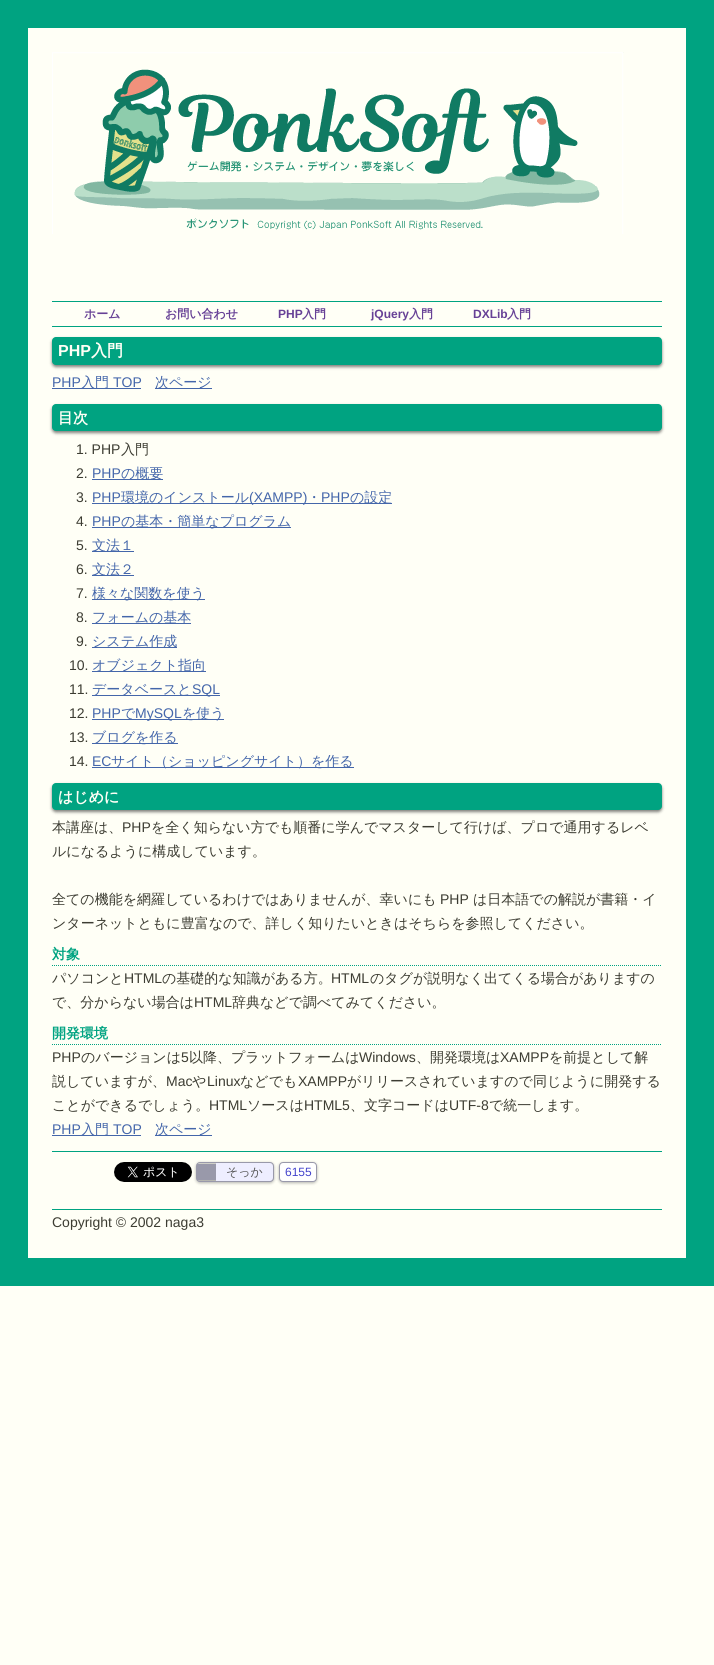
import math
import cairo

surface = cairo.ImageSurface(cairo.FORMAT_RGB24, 714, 1665)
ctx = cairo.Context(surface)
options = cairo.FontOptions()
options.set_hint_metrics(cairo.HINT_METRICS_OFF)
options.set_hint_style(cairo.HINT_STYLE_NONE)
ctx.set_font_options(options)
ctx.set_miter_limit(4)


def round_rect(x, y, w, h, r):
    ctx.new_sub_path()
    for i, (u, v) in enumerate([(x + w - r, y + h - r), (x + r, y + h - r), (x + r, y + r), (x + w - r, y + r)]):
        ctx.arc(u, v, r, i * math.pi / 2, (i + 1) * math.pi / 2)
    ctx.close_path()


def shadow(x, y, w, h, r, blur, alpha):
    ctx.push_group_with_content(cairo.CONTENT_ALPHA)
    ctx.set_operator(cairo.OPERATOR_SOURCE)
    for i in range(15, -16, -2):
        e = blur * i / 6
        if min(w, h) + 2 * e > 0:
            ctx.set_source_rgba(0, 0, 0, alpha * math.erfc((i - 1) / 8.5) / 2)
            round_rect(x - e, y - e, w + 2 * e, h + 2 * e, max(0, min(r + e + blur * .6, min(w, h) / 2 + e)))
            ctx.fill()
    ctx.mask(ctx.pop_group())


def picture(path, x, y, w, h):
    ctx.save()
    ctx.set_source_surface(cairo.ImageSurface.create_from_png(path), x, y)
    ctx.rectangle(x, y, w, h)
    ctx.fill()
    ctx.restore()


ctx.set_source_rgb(1, 1, 0.961)
ctx.paint()
ctx.rectangle(14, 14, 686, 1258)
ctx.set_source_rgb(0, 0.639, 0.506)
ctx.set_line_width(28)
ctx.stroke()
picture("img1.png", 52, 52, 572, 182)
ctx.rectangle(52, 301, 610, 1)
ctx.fill()
ctx.rectangle(52, 326, 610, 1)
ctx.fill()
ctx.select_font_face("WenQuanYi Zen Hei", cairo.FONT_SLANT_NORMAL, cairo.FONT_WEIGHT_BOLD)
ctx.set_font_size(12)
ctx.set_source_rgb(0.404, 0.255, 0.588)
ctx.move_to(84, 318)
ctx.show_text("ホーム")
ctx.move_to(165, 318)
ctx.show_text("お問い合わせ")
ctx.select_font_face("Liberation Sans", cairo.FONT_SLANT_NORMAL, cairo.FONT_WEIGHT_BOLD)
ctx.move_to(278, 318)
ctx.show_text("PHP")
ctx.select_font_face("WenQuanYi Zen Hei", cairo.FONT_SLANT_NORMAL, cairo.FONT_WEIGHT_BOLD)
ctx.move_to(302, 318)
ctx.show_text("入門")
ctx.select_font_face("Liberation Sans", cairo.FONT_SLANT_NORMAL, cairo.FONT_WEIGHT_BOLD)
ctx.move_to(371, 318)
ctx.show_text("jQuery")
ctx.select_font_face("WenQuanYi Zen Hei", cairo.FONT_SLANT_NORMAL, cairo.FONT_WEIGHT_BOLD)
ctx.move_to(409, 318)
ctx.show_text("入門")
ctx.select_font_face("Liberation Sans", cairo.FONT_SLANT_NORMAL, cairo.FONT_WEIGHT_BOLD)
ctx.move_to(473, 318)
ctx.show_text("DXLib")
ctx.select_font_face("WenQuanYi Zen Hei", cairo.FONT_SLANT_NORMAL, cairo.FONT_WEIGHT_BOLD)
ctx.move_to(507, 318)
ctx.show_text("入門")
ctx.set_source_rgb(0, 0, 0)
shadow(52, 339, 610, 28, 4, 1.5, 0.5)
ctx.set_source_rgb(0, 0.639, 0.506)
round_rect(52, 337, 610, 28, 4)
ctx.fill()
ctx.select_font_face("Liberation Sans", cairo.FONT_SLANT_NORMAL, cairo.FONT_WEIGHT_BOLD)
ctx.set_font_size(16)
ctx.set_source_rgb(1, 1, 0.961)
ctx.move_to(58, 356)
ctx.show_text("PHP")
ctx.select_font_face("WenQuanYi Zen Hei", cairo.FONT_SLANT_NORMAL, cairo.FONT_WEIGHT_BOLD)
ctx.move_to(91, 356)
ctx.show_text("入門")
ctx.select_font_face("Liberation Sans")
ctx.set_font_size(14)
ctx.set_source_rgb(0.267, 0.4, 0.667)
ctx.move_to(52, 387)
ctx.show_text("PHP")
ctx.rectangle(52, 388, 89, 1)
ctx.fill()
ctx.select_font_face("WenQuanYi Zen Hei Medium")
ctx.move_to(81, 387)
ctx.show_text("入門")
ctx.select_font_face("Liberation Sans")
ctx.move_to(113, 387)
ctx.show_text("TOP")
ctx.rectangle(155, 388, 57, 1)
ctx.fill()
ctx.select_font_face("WenQuanYi Zen Hei Medium")
ctx.move_to(155, 387)
ctx.show_text("次ページ")
ctx.set_source_rgb(0, 0, 0)
shadow(52, 406, 610, 27, 4, 1.5, 0.5)
ctx.set_source_rgb(0, 0.639, 0.506)
round_rect(52, 404, 610, 27, 4)
ctx.fill()
ctx.select_font_face("WenQuanYi Zen Hei", cairo.FONT_SLANT_NORMAL, cairo.FONT_WEIGHT_BOLD)
ctx.set_font_size(15)
ctx.set_source_rgb(1, 1, 0.961)
ctx.move_to(58, 423)
ctx.show_text("目次")
ctx.select_font_face("Liberation Sans")
ctx.set_font_size(14)
ctx.set_source_rgb(0.235, 0.235, 0.196)
ctx.move_to(76, 454)
ctx.show_text("1. PHP")
ctx.select_font_face("WenQuanYi Zen Hei Medium")
ctx.move_to(121, 454)
ctx.show_text("入門")
ctx.select_font_face("Liberation Sans")
ctx.move_to(76, 478)
ctx.show_text("2.")
ctx.set_source_rgb(0.267, 0.4, 0.667)
ctx.move_to(92, 478)
ctx.show_text("PHP")
ctx.rectangle(92, 479, 71, 1)
ctx.fill()
ctx.select_font_face("WenQuanYi Zen Hei Medium")
ctx.move_to(121, 478)
ctx.show_text("の概要")
ctx.select_font_face("Liberation Sans")
ctx.set_source_rgb(0.235, 0.235, 0.196)
ctx.move_to(76, 502)
ctx.show_text("3.")
ctx.set_source_rgb(0.267, 0.4, 0.667)
ctx.move_to(92, 502)
ctx.show_text("PHP")
ctx.rectangle(92, 503, 300, 1)
ctx.fill()
ctx.select_font_face("WenQuanYi Zen Hei Medium")
ctx.move_to(121, 502)
ctx.show_text("環境のインストール")
ctx.select_font_face("Liberation Sans")
ctx.move_to(249, 502)
ctx.show_text("(XAMPP)")
ctx.select_font_face("WenQuanYi Zen Hei Medium")
ctx.move_to(307, 502)
ctx.show_text("・")
ctx.select_font_face("Liberation Sans")
ctx.move_to(321, 502)
ctx.show_text("PHP")
ctx.select_font_face("WenQuanYi Zen Hei Medium")
ctx.move_to(350, 502)
ctx.show_text("の設定")
ctx.select_font_face("Liberation Sans")
ctx.set_source_rgb(0.235, 0.235, 0.196)
ctx.move_to(76, 526)
ctx.show_text("4.")
ctx.set_source_rgb(0.267, 0.4, 0.667)
ctx.move_to(92, 526)
ctx.show_text("PHP")
ctx.rectangle(92, 527, 199, 1)
ctx.fill()
ctx.select_font_face("WenQuanYi Zen Hei Medium")
ctx.move_to(121, 526)
ctx.show_text("の基本・簡単なプログラム")
ctx.select_font_face("Liberation Sans")
ctx.set_source_rgb(0.235, 0.235, 0.196)
ctx.move_to(76, 550)
ctx.show_text("5.")
ctx.set_source_rgb(0.267, 0.4, 0.667)
ctx.rectangle(92, 551, 42, 1)
ctx.fill()
ctx.select_font_face("WenQuanYi Zen Hei Medium")
ctx.move_to(92, 550)
ctx.show_text("文法１")
ctx.select_font_face("Liberation Sans")
ctx.set_source_rgb(0.235, 0.235, 0.196)
ctx.move_to(76, 574)
ctx.show_text("6.")
ctx.set_source_rgb(0.267, 0.4, 0.667)
ctx.rectangle(92, 575, 42, 1)
ctx.fill()
ctx.select_font_face("WenQuanYi Zen Hei Medium")
ctx.move_to(92, 574)
ctx.show_text("文法２")
ctx.select_font_face("Liberation Sans")
ctx.set_source_rgb(0.235, 0.235, 0.196)
ctx.move_to(76, 598)
ctx.show_text("7.")
ctx.set_source_rgb(0.267, 0.4, 0.667)
ctx.rectangle(92, 599, 113, 1)
ctx.fill()
ctx.select_font_face("WenQuanYi Zen Hei Medium")
ctx.move_to(92, 598)
ctx.show_text("様々な関数を使う")
ctx.select_font_face("Liberation Sans")
ctx.set_source_rgb(0.235, 0.235, 0.196)
ctx.move_to(76, 622)
ctx.show_text("8.")
ctx.set_source_rgb(0.267, 0.4, 0.667)
ctx.rectangle(92, 623, 99, 1)
ctx.fill()
ctx.select_font_face("WenQuanYi Zen Hei Medium")
ctx.move_to(92, 622)
ctx.show_text("フォームの基本")
ctx.select_font_face("Liberation Sans")
ctx.set_source_rgb(0.235, 0.235, 0.196)
ctx.move_to(76, 646)
ctx.show_text("9.")
ctx.set_source_rgb(0.267, 0.4, 0.667)
ctx.rectangle(92, 647, 85, 1)
ctx.fill()
ctx.select_font_face("WenQuanYi Zen Hei Medium")
ctx.move_to(92, 646)
ctx.show_text("システム作成")
ctx.select_font_face("Liberation Sans")
ctx.set_source_rgb(0.235, 0.235, 0.196)
ctx.move_to(69, 670)
ctx.show_text("10.")
ctx.set_source_rgb(0.267, 0.4, 0.667)
ctx.rectangle(92, 671, 114, 1)
ctx.fill()
ctx.select_font_face("WenQuanYi Zen Hei Medium")
ctx.move_to(92, 670)
ctx.show_text("オブジェクト指向")
ctx.select_font_face("Liberation Sans")
ctx.set_source_rgb(0.235, 0.235, 0.196)
ctx.move_to(69, 694)
ctx.show_text("11.")
ctx.set_source_rgb(0.267, 0.4, 0.667)
ctx.rectangle(92, 695, 128, 1)
ctx.fill()
ctx.select_font_face("WenQuanYi Zen Hei Medium")
ctx.move_to(92, 694)
ctx.show_text("データベースと")
ctx.select_font_face("Liberation Sans")
ctx.move_to(192, 694)
ctx.show_text("SQL")
ctx.set_source_rgb(0.235, 0.235, 0.196)
ctx.move_to(69, 718)
ctx.show_text("12.")
ctx.set_source_rgb(0.267, 0.4, 0.667)
ctx.move_to(92, 718)
ctx.show_text("PHP")
ctx.rectangle(92, 719, 132, 1)
ctx.fill()
ctx.select_font_face("WenQuanYi Zen Hei Medium")
ctx.move_to(121, 718)
ctx.show_text("で")
ctx.select_font_face("Liberation Sans")
ctx.move_to(135, 718)
ctx.show_text("MySQL")
ctx.select_font_face("WenQuanYi Zen Hei Medium")
ctx.move_to(182, 718)
ctx.show_text("を使う")
ctx.select_font_face("Liberation Sans")
ctx.set_source_rgb(0.235, 0.235, 0.196)
ctx.move_to(69, 742)
ctx.show_text("13.")
ctx.set_source_rgb(0.267, 0.4, 0.667)
ctx.rectangle(92, 743, 86, 1)
ctx.fill()
ctx.select_font_face("WenQuanYi Zen Hei Medium")
ctx.move_to(92, 742)
ctx.show_text("ブログを作る")
ctx.select_font_face("Liberation Sans")
ctx.set_source_rgb(0.235, 0.235, 0.196)
ctx.move_to(69, 766)
ctx.show_text("14.")
ctx.set_source_rgb(0.267, 0.4, 0.667)
ctx.move_to(92, 766)
ctx.show_text("EC")
ctx.rectangle(92, 767, 262, 1)
ctx.fill()
ctx.select_font_face("WenQuanYi Zen Hei Medium")
ctx.move_to(111, 766)
ctx.show_text("サイト（ショッピングサイト）を作る")
ctx.set_source_rgb(0, 0, 0)
shadow(52, 785, 610, 27, 4, 1.5, 0.5)
ctx.set_source_rgb(0, 0.639, 0.506)
round_rect(52, 783, 610, 27, 4)
ctx.fill()
ctx.select_font_face("WenQuanYi Zen Hei", cairo.FONT_SLANT_NORMAL, cairo.FONT_WEIGHT_BOLD)
ctx.set_font_size(15)
ctx.set_source_rgb(1, 1, 0.961)
ctx.move_to(58, 802)
ctx.show_text("はじめに")
ctx.select_font_face("WenQuanYi Zen Hei Medium")
ctx.set_font_size(14)
ctx.set_source_rgb(0.235, 0.235, 0.196)
ctx.move_to(52, 832)
ctx.show_text("本講座は、")
ctx.select_font_face("Liberation Sans")
ctx.move_to(122, 832)
ctx.show_text("PHP")
ctx.select_font_face("WenQuanYi Zen Hei Medium")
ctx.move_to(151, 832)
ctx.show_text("を全く知らない方でも順番に学んでマスターして行けば、プロで通用するレベ")
ctx.move_to(52, 856)
ctx.show_text("ルになるように構成しています。")
ctx.move_to(52, 904)
ctx.show_text("全ての機能を網羅しているわけではありませんが、幸いにも")
ctx.select_font_face("Liberation Sans")
ctx.move_to(440, 904)
ctx.show_text("PHP")
ctx.select_font_face("WenQuanYi Zen Hei Medium")
ctx.move_to(473, 904)
ctx.show_text("は日本語での解説が書籍・イ")
ctx.move_to(52, 928)
ctx.show_text("ンターネットともに豊富なので、詳しく知りたいときはそちらを参照してください。")
ctx.new_path()
ctx.move_to(52, 965.5)
ctx.line_to(662, 965.5)
ctx.set_source_rgb(0, 0.639, 0.506)
ctx.set_line_width(1)
ctx.set_dash([1, 1])
ctx.stroke()
ctx.select_font_face("WenQuanYi Zen Hei", cairo.FONT_SLANT_NORMAL, cairo.FONT_WEIGHT_BOLD)
ctx.move_to(52, 959)
ctx.show_text("対象")
ctx.select_font_face("WenQuanYi Zen Hei Medium")
ctx.set_source_rgb(0.235, 0.235, 0.196)
ctx.move_to(52, 983)
ctx.show_text("パソコンと")
ctx.select_font_face("Liberation Sans")
ctx.move_to(124, 983)
ctx.show_text("HTML")
ctx.select_font_face("WenQuanYi Zen Hei Medium")
ctx.move_to(162, 983)
ctx.show_text("の基礎的な知識がある方。")
ctx.select_font_face("Liberation Sans")
ctx.move_to(331, 983)
ctx.show_text("HTML")
ctx.select_font_face("WenQuanYi Zen Hei Medium")
ctx.move_to(370, 983)
ctx.show_text("のタグが説明なく出てくる場合がありますの")
ctx.move_to(52, 1007)
ctx.show_text("で、分からない場合は")
ctx.select_font_face("Liberation Sans")
ctx.move_to(194, 1007)
ctx.show_text("HTML")
ctx.select_font_face("WenQuanYi Zen Hei Medium")
ctx.move_to(232, 1007)
ctx.show_text("辞典などで調べてみてください。")
ctx.new_path()
ctx.move_to(52, 1044.5)
ctx.line_to(662, 1044.5)
ctx.set_source_rgb(0, 0.639, 0.506)
ctx.stroke()
ctx.select_font_face("WenQuanYi Zen Hei", cairo.FONT_SLANT_NORMAL, cairo.FONT_WEIGHT_BOLD)
ctx.move_to(52, 1038)
ctx.show_text("開発環境")
ctx.select_font_face("Liberation Sans")
ctx.set_source_rgb(0.235, 0.235, 0.196)
ctx.move_to(52, 1062)
ctx.show_text("PHP")
ctx.select_font_face("WenQuanYi Zen Hei Medium")
ctx.move_to(81, 1062)
ctx.show_text("のバージョンは")
ctx.select_font_face("Liberation Sans")
ctx.move_to(181, 1062)
ctx.show_text("5")
ctx.select_font_face("WenQuanYi Zen Hei Medium")
ctx.move_to(189, 1062)
ctx.show_text("以降、プラットフォームは")
ctx.select_font_face("Liberation Sans")
ctx.move_to(359, 1062)
ctx.show_text("Windows")
ctx.select_font_face("WenQuanYi Zen Hei Medium")
ctx.move_to(416, 1062)
ctx.show_text("、開発環境は")
ctx.select_font_face("Liberation Sans")
ctx.move_to(500, 1062)
ctx.show_text("XAMPP")
ctx.select_font_face("WenQuanYi Zen Hei Medium")
ctx.move_to(549, 1062)
ctx.show_text("を前提として解")
ctx.move_to(52, 1086)
ctx.show_text("説していますが、")
ctx.select_font_face("Liberation Sans")
ctx.move_to(166, 1086)
ctx.show_text("Mac")
ctx.select_font_face("WenQuanYi Zen Hei Medium")
ctx.move_to(192, 1086)
ctx.show_text("や")
ctx.select_font_face("Liberation Sans")
ctx.move_to(207, 1086)
ctx.show_text("Linux")
ctx.select_font_face("WenQuanYi Zen Hei Medium")
ctx.move_to(240, 1086)
ctx.show_text("などでも")
ctx.select_font_face("Liberation Sans")
ctx.move_to(298, 1086)
ctx.show_text("XAMPP")
ctx.select_font_face("WenQuanYi Zen Hei Medium")
ctx.move_to(347, 1086)
ctx.show_text("がリリースされていますので同じように開発する")
ctx.move_to(52, 1110)
ctx.show_text("ことができるでしょう。")
ctx.select_font_face("Liberation Sans")
ctx.move_to(209, 1110)
ctx.show_text("HTML")
ctx.select_font_face("WenQuanYi Zen Hei Medium")
ctx.move_to(247, 1110)
ctx.show_text("ソースは")
ctx.select_font_face("Liberation Sans")
ctx.move_to(304, 1110)
ctx.show_text("HTML5")
ctx.select_font_face("WenQuanYi Zen Hei Medium")
ctx.move_to(350, 1110)
ctx.show_text("、文字コードは")
ctx.select_font_face("Liberation Sans")
ctx.move_to(449, 1110)
ctx.show_text("UTF-8")
ctx.select_font_face("WenQuanYi Zen Hei Medium")
ctx.move_to(489, 1110)
ctx.show_text("で統一します。")
ctx.select_font_face("Liberation Sans")
ctx.set_source_rgb(0.267, 0.4, 0.667)
ctx.move_to(52, 1134)
ctx.show_text("PHP")
ctx.rectangle(52, 1135, 89, 1)
ctx.fill()
ctx.select_font_face("WenQuanYi Zen Hei Medium")
ctx.move_to(81, 1134)
ctx.show_text("入門")
ctx.select_font_face("Liberation Sans")
ctx.move_to(113, 1134)
ctx.show_text("TOP")
ctx.rectangle(155, 1135, 57, 1)
ctx.fill()
ctx.select_font_face("WenQuanYi Zen Hei Medium")
ctx.move_to(155, 1134)
ctx.show_text("次ページ")
ctx.set_source_rgb(0, 0.639, 0.506)
ctx.rectangle(52, 1151, 610, 1)
ctx.fill()
ctx.set_source_rgb(0, 0, 0)
shadow(196, 1163, 78, 20, 4, 1.5, 0.3)
picture("img2.png", 114, 1162, 78, 20)
ctx.set_source_rgb(0.933, 0.933, 1)
ctx.new_path()
ctx.move_to(216, 1163)
ctx.line_to(270, 1163)
ctx.curve_to(272, 1163, 273, 1164, 273, 1166)
ctx.line_to(273, 1178)
ctx.curve_to(273, 1180, 272, 1181, 270, 1181)
ctx.line_to(216, 1181)
ctx.close_path()
ctx.fill()
round_rect(196.5, 1162.5, 77, 19, 3.5)
ctx.set_source_rgb(0.6, 0.6, 0.667)
ctx.set_dash([])
ctx.stroke()
ctx.rectangle(197, 1164, 19, 16)
ctx.fill()
ctx.set_font_size(12)
ctx.set_source_rgb(0.333, 0.333, 0.333)
ctx.move_to(226, 1176)
ctx.show_text("そっか")
ctx.set_source_rgb(0, 0, 0)
shadow(279, 1163, 38, 20, 4, 1.5, 0.3)
ctx.set_source_rgb(1, 1, 1)
round_rect(279.5, 1162.5, 37, 19, 3.5)
ctx.fill_preserve()
ctx.set_source_rgb(0.6, 0.6, 0.667)
ctx.stroke()
ctx.select_font_face("Liberation Sans")
ctx.set_source_rgb(0.267, 0.267, 0.8)
ctx.move_to(285, 1176)
ctx.show_text("6155")
ctx.set_source_rgb(0, 0.639, 0.506)
ctx.rectangle(52, 1209, 610, 1)
ctx.fill()
ctx.set_font_size(14)
ctx.set_source_rgb(0.235, 0.235, 0.196)
ctx.move_to(52, 1227)
ctx.show_text("Copyright © 2002 naga3")
surface.write_to_png("page.png")
